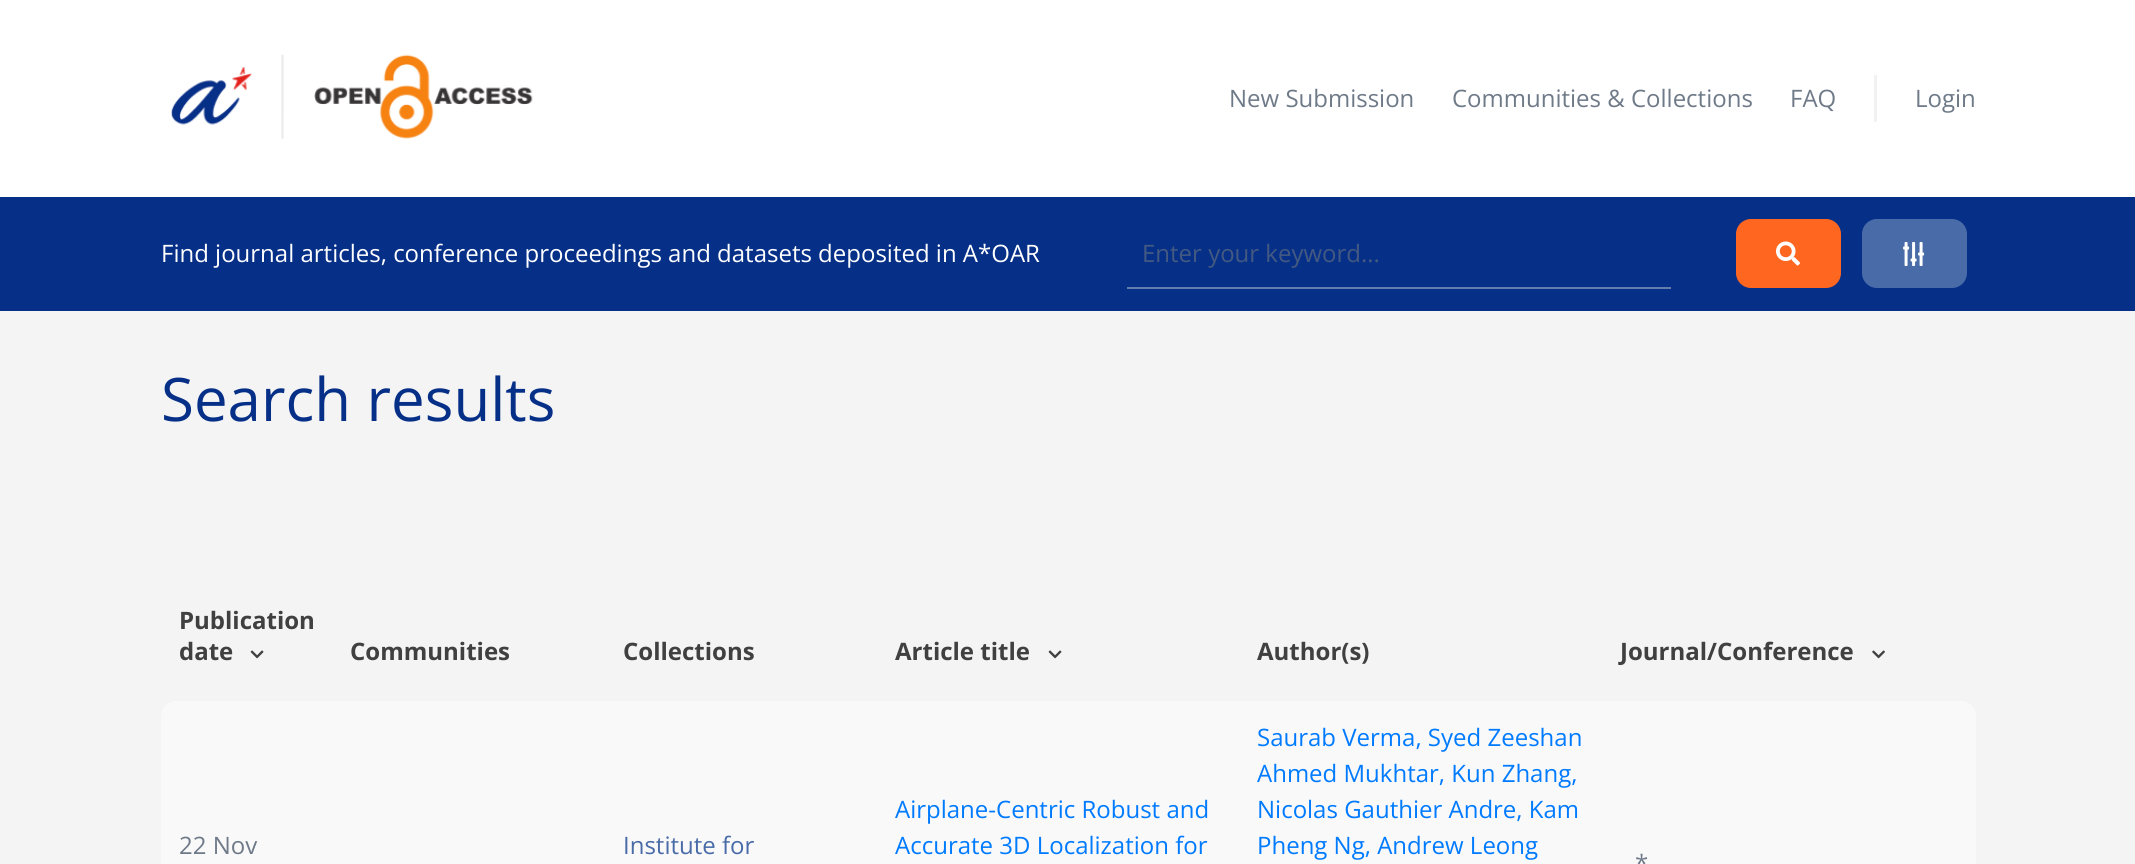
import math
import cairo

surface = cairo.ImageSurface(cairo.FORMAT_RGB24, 2135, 864)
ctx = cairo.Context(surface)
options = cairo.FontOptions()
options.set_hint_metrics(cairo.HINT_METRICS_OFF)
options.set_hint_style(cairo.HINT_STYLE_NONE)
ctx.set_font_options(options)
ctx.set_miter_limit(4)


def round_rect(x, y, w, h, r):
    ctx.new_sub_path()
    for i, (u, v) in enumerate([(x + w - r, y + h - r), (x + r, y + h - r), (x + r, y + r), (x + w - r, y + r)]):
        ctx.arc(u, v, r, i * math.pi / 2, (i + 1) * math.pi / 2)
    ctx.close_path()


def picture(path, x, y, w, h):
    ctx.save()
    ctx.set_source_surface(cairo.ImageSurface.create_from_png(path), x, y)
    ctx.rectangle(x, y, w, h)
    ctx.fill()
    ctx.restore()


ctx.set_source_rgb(0.957, 0.957, 0.957)
ctx.paint()
ctx.set_source_rgb(1, 1, 1)
ctx.rectangle(0, 0, 2135, 197)
ctx.fill()
picture("img1.png", 171, 54, 362, 85)
ctx.select_font_face("Open Sans")
ctx.set_font_size(24)
ctx.set_source_rgb(0.435, 0.478, 0.537)
ctx.move_to(1229, 107)
ctx.show_text("New Submission")
ctx.move_to(1452, 107)
ctx.show_text("Communities & Collections")
ctx.move_to(1790, 107)
ctx.show_text("FAQ")
ctx.set_source_rgb(0.949, 0.949, 0.949)
ctx.rectangle(1874, 75, 3, 47)
ctx.fill()
ctx.set_source_rgb(0.435, 0.478, 0.537)
ctx.move_to(1915, 107)
ctx.show_text("Login")
ctx.set_source_rgb(0.024, 0.184, 0.529)
ctx.rectangle(0, 197, 2135, 114)
ctx.fill()
ctx.set_source_rgb(1, 1, 1)
ctx.move_to(161, 262)
ctx.show_text("Find journal articles, conference proceedings and datasets deposited in A*OAR")
ctx.set_source_rgb(0.388, 0.49, 0.678)
ctx.rectangle(1127, 287, 544, 2)
ctx.fill()
ctx.set_source_rgb(0.263, 0.349, 0.506)
ctx.move_to(1142, 262)
ctx.show_text("Enter your keyword...")
ctx.set_source_rgb(1, 0.404, 0.125)
round_rect(1736, 219, 105, 69, 15)
ctx.fill()
picture("img2.png", 1776, 241, 24, 25)
ctx.set_source_rgb(0.286, 0.42, 0.659)
round_rect(1862, 219, 105, 69, 15)
ctx.fill()
picture("img3.png", 1903, 242, 22, 24)
ctx.set_font_size(60)
ctx.set_source_rgb(0.024, 0.184, 0.529)
ctx.move_to(161, 421)
ctx.show_text("Search results")
ctx.select_font_face("Open Sans", cairo.FONT_SLANT_NORMAL, cairo.FONT_WEIGHT_BOLD)
ctx.set_font_size(24)
ctx.set_source_rgb(0.251, 0.251, 0.251)
ctx.move_to(179, 629)
ctx.show_text("Publication")
ctx.move_to(179, 660)
ctx.show_text("date")
picture("img4.png", 250, 650, 14, 9)
ctx.move_to(350, 660)
ctx.show_text("Communities")
ctx.move_to(623, 660)
ctx.show_text("Collections")
ctx.move_to(895, 660)
ctx.show_text("Article title")
picture("img4.png", 1048, 650, 14, 9)
ctx.move_to(1257, 660)
ctx.show_text("Author(s)")
ctx.move_to(1620, 660)
ctx.show_text("Journal/Conference")
picture("img5.png", 1872, 650, 13, 9)
ctx.set_source_rgb(0.976, 0.976, 0.976)
round_rect(161, 701, 1815, 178, 15)
ctx.fill()
ctx.select_font_face("Open Sans")
ctx.set_source_rgb(0.435, 0.478, 0.537)
ctx.move_to(179, 854)
ctx.show_text("22 Nov")
ctx.set_source_rgb(0.286, 0.42, 0.659)
ctx.move_to(623, 854)
ctx.show_text("Institute for")
ctx.set_source_rgb(0, 0.482, 1)
ctx.move_to(895, 818)
ctx.show_text("Airplane-Centric Robust and")
ctx.move_to(895, 854)
ctx.show_text("Accurate 3D Localization for")
ctx.move_to(1257, 746)
ctx.show_text("Saurab Verma, Syed Zeeshan")
ctx.move_to(1257, 782)
ctx.show_text("Ahmed Mukhtar, Kun Zhang,")
ctx.move_to(1257, 818)
ctx.show_text("Nicolas Gauthier Andre, Kam")
ctx.move_to(1257, 854)
ctx.show_text("Pheng Ng, Andrew Leong")
ctx.set_source_rgb(0.435, 0.478, 0.537)
ctx.move_to(1635, 872)
ctx.show_text("*")
surface.write_to_png("page.png")
